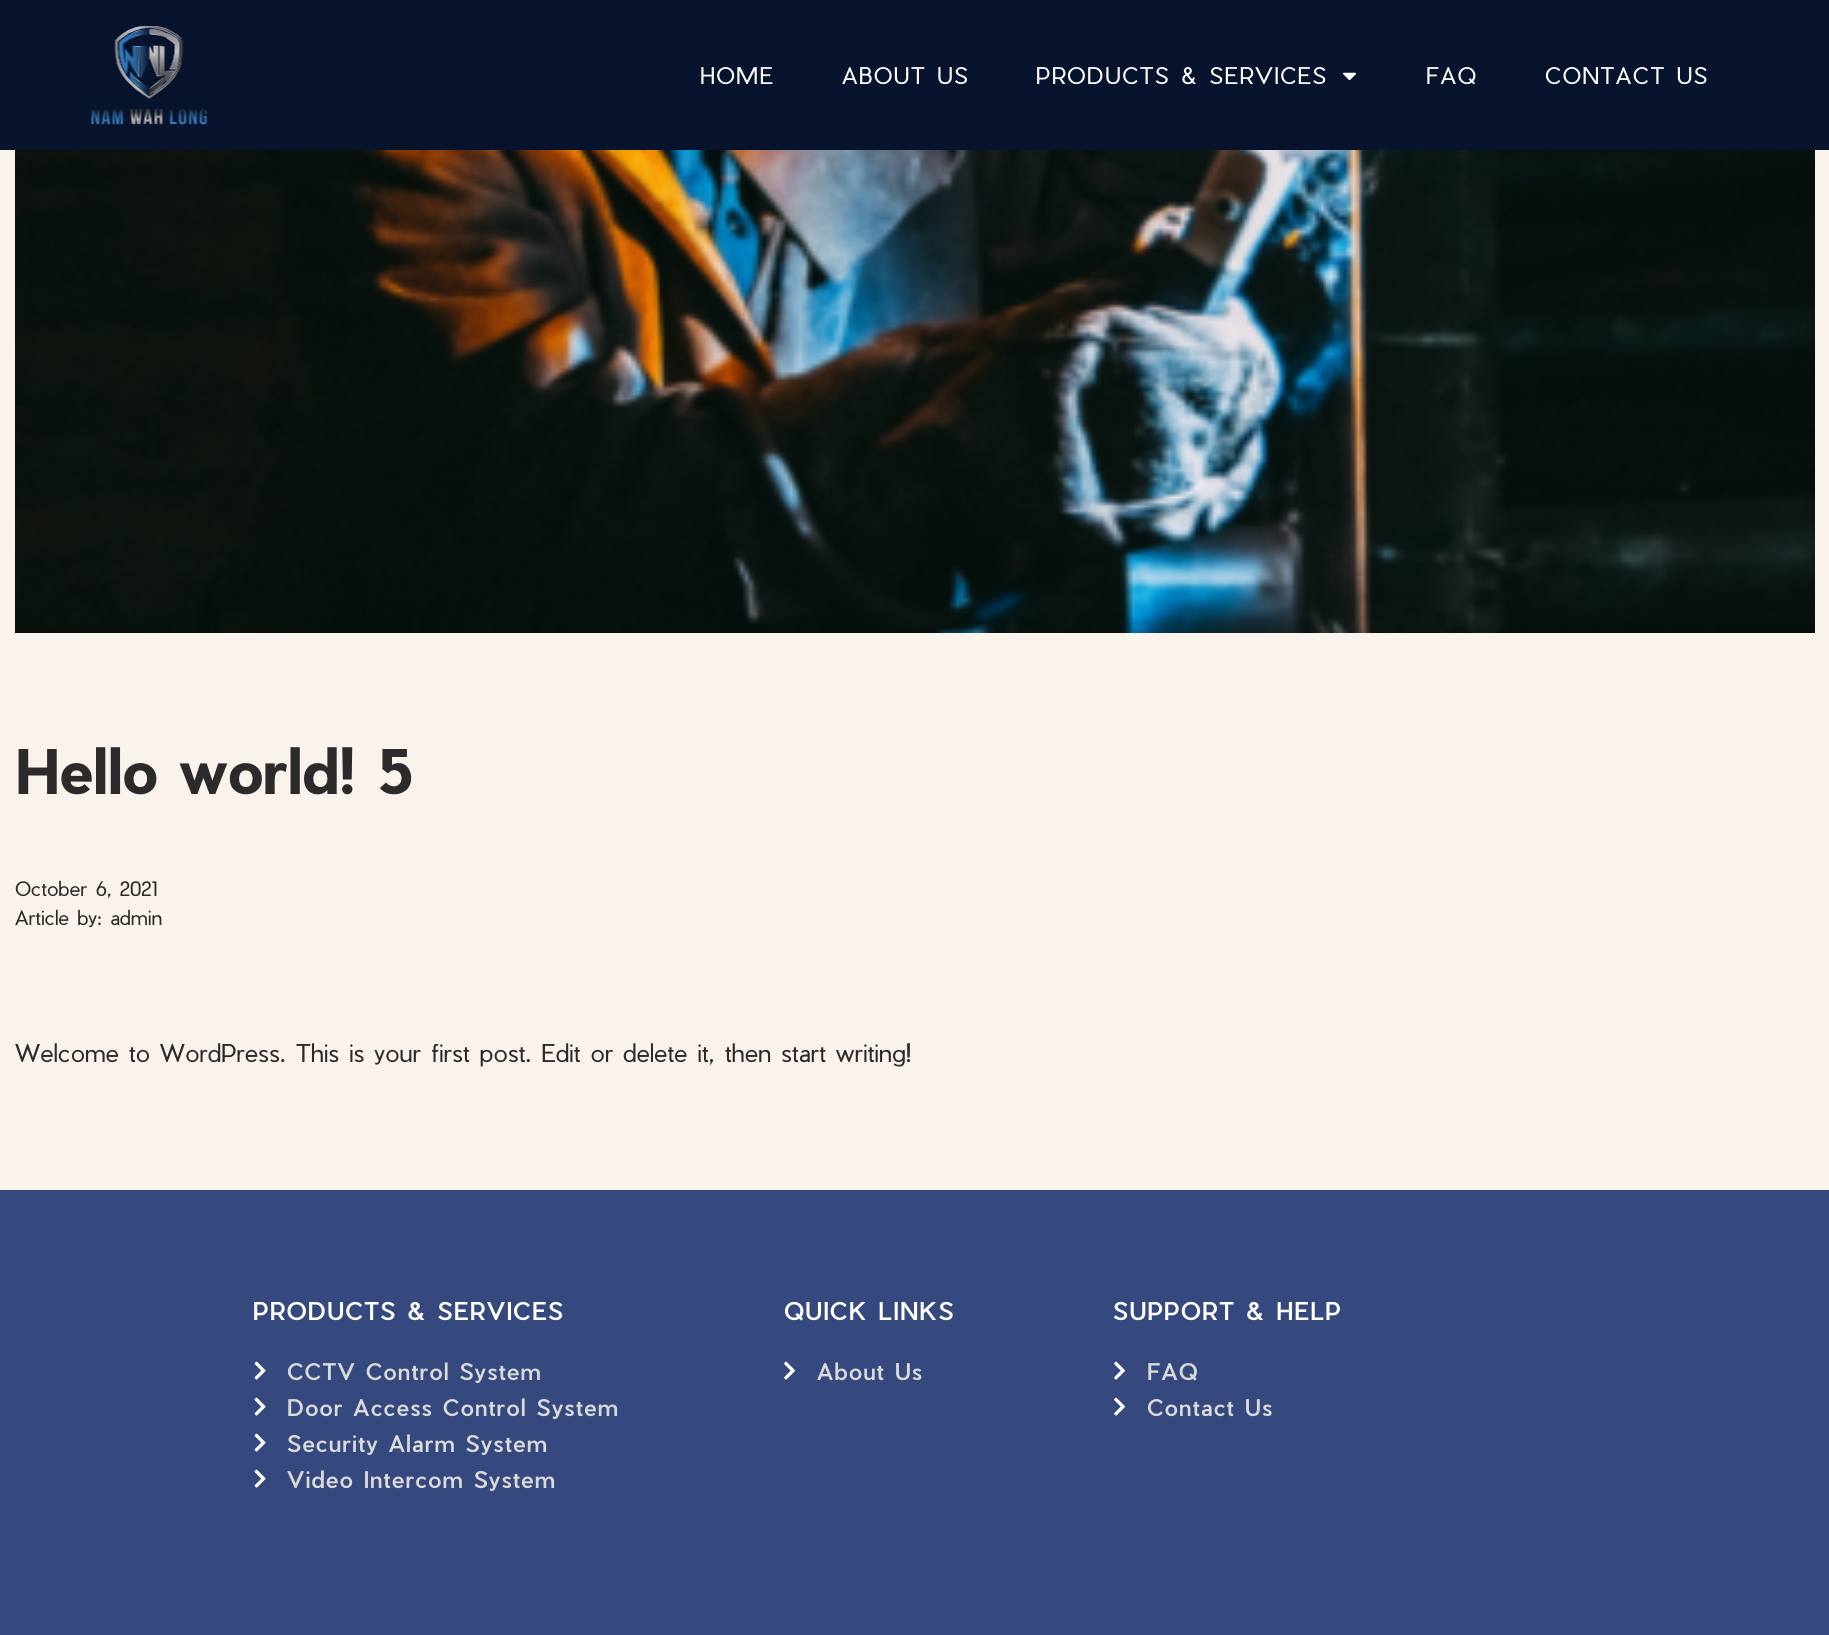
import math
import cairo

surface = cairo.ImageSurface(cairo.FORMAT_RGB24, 1829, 1635)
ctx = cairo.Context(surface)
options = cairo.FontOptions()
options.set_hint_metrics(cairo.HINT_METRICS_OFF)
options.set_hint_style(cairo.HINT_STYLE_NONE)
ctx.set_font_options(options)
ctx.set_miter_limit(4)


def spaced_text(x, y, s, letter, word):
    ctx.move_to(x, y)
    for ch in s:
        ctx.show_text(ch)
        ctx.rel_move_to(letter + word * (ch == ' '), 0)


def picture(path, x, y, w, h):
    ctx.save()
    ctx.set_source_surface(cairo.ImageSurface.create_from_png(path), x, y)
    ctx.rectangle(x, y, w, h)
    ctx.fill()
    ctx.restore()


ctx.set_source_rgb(0.98, 0.953, 0.922)
ctx.paint()
ctx.set_source_rgb(0.035, 0.078, 0.18)
ctx.rectangle(0, 0, 1829, 150)
ctx.fill()
picture("img1.png", 91, 26, 117, 99)
ctx.select_font_face("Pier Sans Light")
ctx.set_font_size(22.5)
ctx.set_source_rgb(1, 1, 1)
spaced_text(700, 84, "HOME", 1.5, 0)
spaced_text(842, 84, "ABOUT US", 1.5, 0)
spaced_text(1036, 84, "PRODUCTS & SERVICES", 1.5, 0)
picture("img2.png", 1343, 72, 13, 9)
spaced_text(1426, 84, "FAQ", 1.5, 0)
spaced_text(1545, 84, "CONTACT US", 1.5, 0)
picture("img3.png", 15, 150, 1800, 483)
ctx.select_font_face("Pier Sans", cairo.FONT_SLANT_NORMAL, cairo.FONT_WEIGHT_BOLD)
ctx.set_font_size(60)
ctx.set_source_rgb(0.169, 0.169, 0.169)
ctx.move_to(15, 794)
ctx.show_text("Hello world! 5")
ctx.select_font_face("Pier Sans Light")
ctx.set_font_size(19.5)
ctx.move_to(15, 896)
ctx.show_text("October 6, 2021")
ctx.move_to(15, 925)
ctx.show_text("Article by: admin")
ctx.set_font_size(24)
ctx.move_to(15, 1062)
ctx.show_text("Welcome to WordPress. This is your first post. Edit or delete it, then start writing!")
ctx.set_source_rgb(0.212, 0.286, 0.494)
ctx.rectangle(0, 1190, 1829, 445)
ctx.fill()
ctx.select_font_face("Pier Sans Medium")
ctx.set_source_rgb(1, 1, 1)
spaced_text(253, 1320, "PRODUCTS & SERVICES", 1.25, 0)
picture("img4.png", 254, 1361, 12, 19)
ctx.set_font_size(22.5)
ctx.set_source_rgb(0.855, 0.855, 0.855)
spaced_text(287, 1380, "CCTV Control System", 1.15, 0)
picture("img4.png", 254, 1397, 12, 19)
spaced_text(287, 1416, "Door Access Control System", 1.15, 0)
picture("img4.png", 254, 1433, 12, 19)
spaced_text(287, 1452, "Security Alarm System", 1.15, 0)
picture("img4.png", 254, 1469, 12, 19)
spaced_text(287, 1488, "Video Intercom System", 1.15, 0)
ctx.set_font_size(24)
ctx.set_source_rgb(1, 1, 1)
spaced_text(784, 1320, "QUICK LINKS", 1.25, 0)
picture("img5.png", 784, 1361, 11, 19)
ctx.set_font_size(22.5)
ctx.set_source_rgb(0.855, 0.855, 0.855)
spaced_text(817, 1380, "About Us", 1.15, 0)
ctx.set_font_size(24)
ctx.set_source_rgb(1, 1, 1)
spaced_text(1113, 1320, "SUPPORT & HELP", 1.25, 0)
picture("img5.png", 1114, 1361, 11, 19)
ctx.set_font_size(22.5)
ctx.set_source_rgb(0.855, 0.855, 0.855)
spaced_text(1147, 1380, "FAQ", 1.15, 0)
picture("img5.png", 1114, 1397, 11, 19)
spaced_text(1147, 1416, "Contact Us", 1.15, 0)
surface.write_to_png("page.png")
